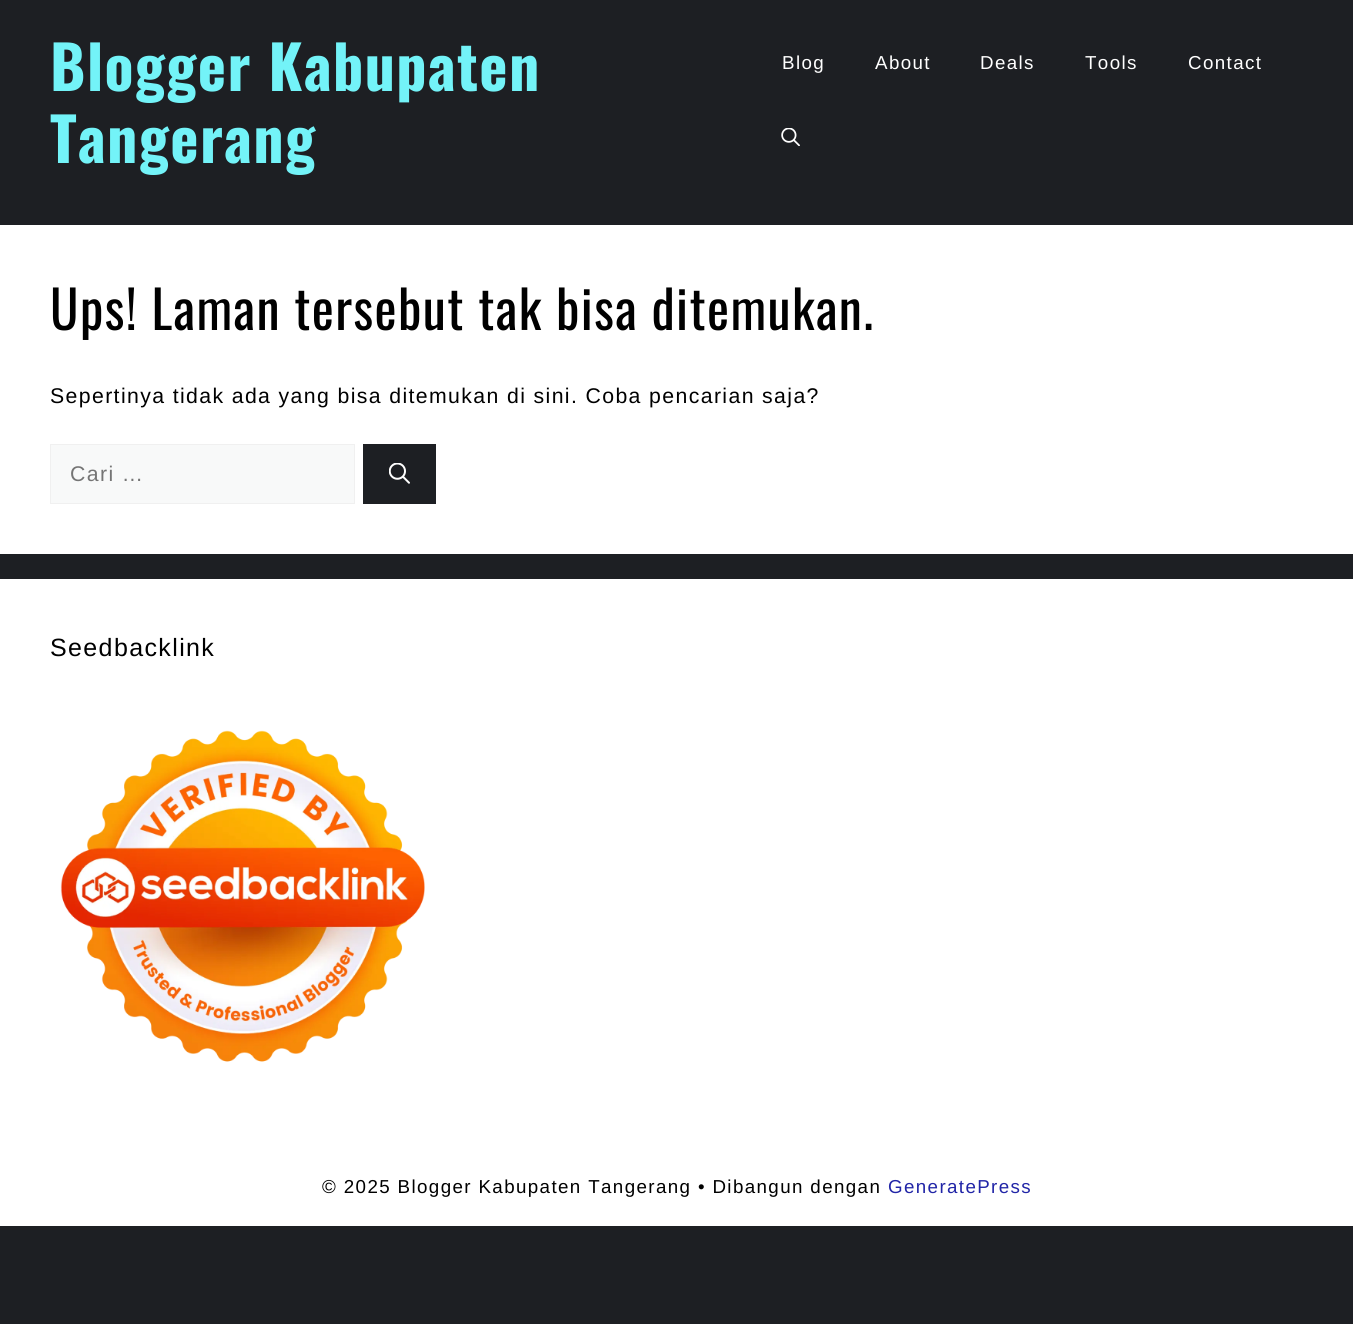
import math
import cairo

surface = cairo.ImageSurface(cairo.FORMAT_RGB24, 1353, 1324)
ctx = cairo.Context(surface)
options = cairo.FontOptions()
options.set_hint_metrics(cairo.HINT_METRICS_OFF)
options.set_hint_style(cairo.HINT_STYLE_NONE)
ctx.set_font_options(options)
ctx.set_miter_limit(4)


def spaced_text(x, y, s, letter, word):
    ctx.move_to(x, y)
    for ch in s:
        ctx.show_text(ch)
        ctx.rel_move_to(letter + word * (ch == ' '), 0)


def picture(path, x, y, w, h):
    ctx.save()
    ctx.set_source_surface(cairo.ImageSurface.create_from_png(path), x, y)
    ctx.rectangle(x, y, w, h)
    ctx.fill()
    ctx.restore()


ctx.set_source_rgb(0.114, 0.122, 0.137)
ctx.paint()
ctx.select_font_face("Oswald", cairo.FONT_SLANT_NORMAL, cairo.FONT_WEIGHT_BOLD)
ctx.set_font_size(60)
ctx.set_source_rgb(0.451, 0.953, 0.969)
spaced_text(50, 91, "Blogger Kabupaten", 1.38, 0)
spaced_text(50, 163, "Tangerang", 1.38, 0)
ctx.select_font_face("Liberation Sans")
ctx.set_font_size(18.75)
ctx.set_source_rgb(1, 1, 1)
spaced_text(782, 69, "Blog", 1.38, 0)
spaced_text(875, 69, "About", 1.38, 0)
spaced_text(980, 69, "Deals", 1.38, 0)
spaced_text(1085, 69, "Tools", 1.38, 0)
spaced_text(1188, 69, "Contact", 1.38, 0)
picture("img1.png", 781, 128, 19, 18)
ctx.rectangle(0, 225, 1353, 329)
ctx.fill()
ctx.select_font_face("Oswald")
ctx.set_font_size(52.5)
ctx.set_source_rgb(0, 0, 0)
spaced_text(50, 330, "Ups! Laman tersebut tak bisa ditemukan.", 1.38, 0)
ctx.select_font_face("Liberation Sans")
ctx.set_font_size(21.25)
spaced_text(50, 403, "Sepertinya tidak ada yang bisa ditemukan di sini. Coba pencarian saja?", 1.38, 0)
ctx.set_source_rgb(0.969, 0.973, 0.976)
ctx.rectangle(50.5, 444.5, 304, 59)
ctx.fill_preserve()
ctx.set_source_rgb(0.941, 0.941, 0.941)
ctx.set_line_width(1)
ctx.stroke()
ctx.set_source_rgb(0.459, 0.459, 0.459)
spaced_text(70, 481, "Cari …", 1.38, 0)
ctx.set_source_rgb(0.114, 0.122, 0.137)
ctx.rectangle(363, 444, 73, 60)
ctx.fill()
picture("img2.png", 389, 463, 21, 21)
ctx.set_source_rgb(1, 1, 1)
ctx.rectangle(0, 579, 1353, 647)
ctx.fill()
ctx.set_font_size(25)
ctx.set_source_rgb(0, 0, 0)
spaced_text(50, 656, "Seedbacklink", 1.38, 0)
picture("img3.png", 60, 730, 365, 332)
ctx.set_font_size(18.75)
spaced_text(322, 1193, "© 2025 Blogger Kabupaten Tangerang • Dibangun dengan", 1.38, 0)
ctx.set_source_rgb(0.129, 0.145, 0.655)
spaced_text(888, 1193, "GeneratePress", 1.38, 0)
surface.write_to_png("page.png")
